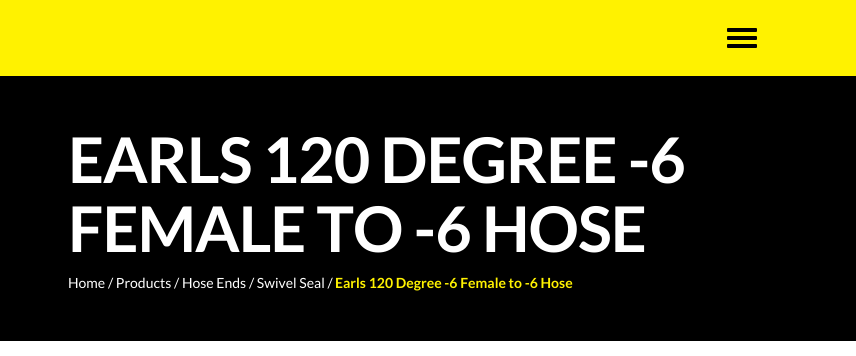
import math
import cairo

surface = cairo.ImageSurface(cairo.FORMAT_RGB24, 856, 356)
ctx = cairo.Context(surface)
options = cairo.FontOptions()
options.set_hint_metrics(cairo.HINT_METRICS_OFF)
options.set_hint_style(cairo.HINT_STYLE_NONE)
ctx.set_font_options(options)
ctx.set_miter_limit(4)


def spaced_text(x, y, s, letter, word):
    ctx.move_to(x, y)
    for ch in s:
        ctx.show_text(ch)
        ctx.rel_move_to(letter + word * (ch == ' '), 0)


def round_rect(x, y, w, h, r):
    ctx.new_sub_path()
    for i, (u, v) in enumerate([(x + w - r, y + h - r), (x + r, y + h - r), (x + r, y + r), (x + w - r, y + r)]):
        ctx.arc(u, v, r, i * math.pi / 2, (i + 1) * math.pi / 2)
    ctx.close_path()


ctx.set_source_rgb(1, 1, 1)
ctx.paint()
ctx.set_source_rgb(1, 0.949, 0)
ctx.rectangle(0, 0, 856, 76)
ctx.fill()
ctx.set_source_rgb(0, 0, 0)
round_rect(727, 28, 30, 4, 1)
ctx.fill()
round_rect(727, 36, 30, 4, 1)
ctx.fill()
round_rect(727, 44, 30, 4, 1)
ctx.fill()
ctx.rectangle(0, 76, 856, 265)
ctx.fill()
ctx.select_font_face("Lato", cairo.FONT_SLANT_NORMAL, cairo.FONT_WEIGHT_BOLD)
ctx.set_font_size(63)
ctx.set_source_rgb(1, 1, 1)
spaced_text(68, 183, "EARLS 120 DEGREE -6", -1, 0)
spaced_text(68, 252, "FEMALE TO -6 HOSE", -1, 0)
ctx.select_font_face("Lato")
ctx.set_font_size(14)
ctx.move_to(68, 288)
ctx.show_text("Home / Products / Hose Ends / Swivel Seal /")
ctx.select_font_face("Lato", cairo.FONT_SLANT_NORMAL, cairo.FONT_WEIGHT_BOLD)
ctx.set_source_rgb(1, 0.949, 0)
ctx.move_to(335, 288)
ctx.show_text("Earls 120 Degree -6 Female to -6 Hose")
surface.write_to_png("page.png")
